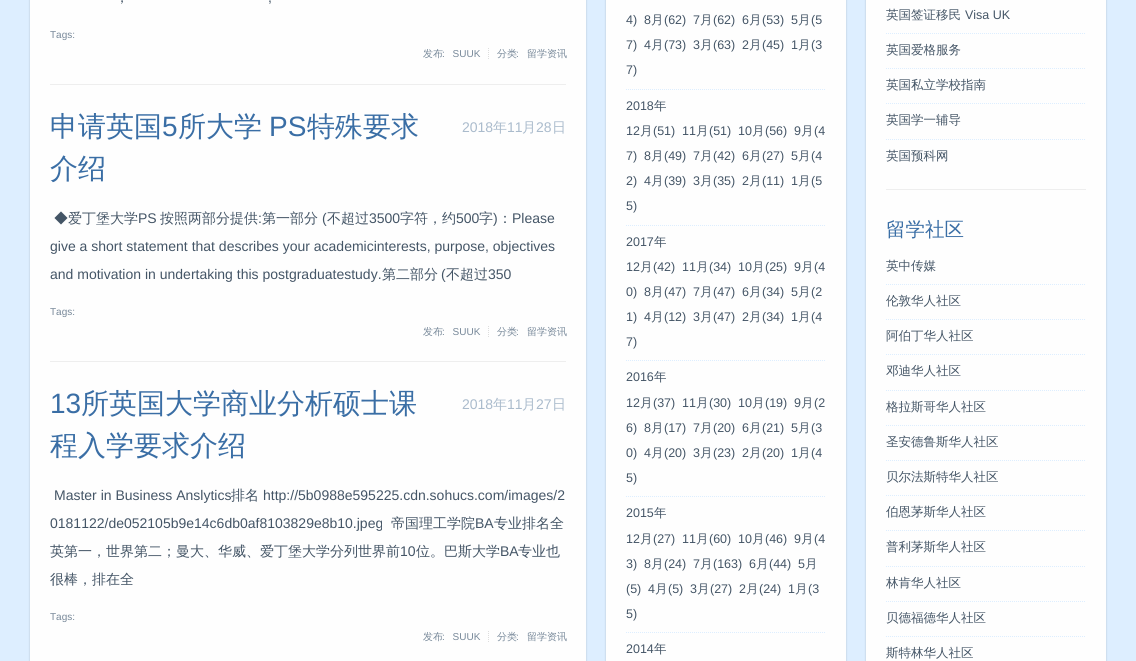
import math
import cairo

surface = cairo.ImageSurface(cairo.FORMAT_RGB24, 1136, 661)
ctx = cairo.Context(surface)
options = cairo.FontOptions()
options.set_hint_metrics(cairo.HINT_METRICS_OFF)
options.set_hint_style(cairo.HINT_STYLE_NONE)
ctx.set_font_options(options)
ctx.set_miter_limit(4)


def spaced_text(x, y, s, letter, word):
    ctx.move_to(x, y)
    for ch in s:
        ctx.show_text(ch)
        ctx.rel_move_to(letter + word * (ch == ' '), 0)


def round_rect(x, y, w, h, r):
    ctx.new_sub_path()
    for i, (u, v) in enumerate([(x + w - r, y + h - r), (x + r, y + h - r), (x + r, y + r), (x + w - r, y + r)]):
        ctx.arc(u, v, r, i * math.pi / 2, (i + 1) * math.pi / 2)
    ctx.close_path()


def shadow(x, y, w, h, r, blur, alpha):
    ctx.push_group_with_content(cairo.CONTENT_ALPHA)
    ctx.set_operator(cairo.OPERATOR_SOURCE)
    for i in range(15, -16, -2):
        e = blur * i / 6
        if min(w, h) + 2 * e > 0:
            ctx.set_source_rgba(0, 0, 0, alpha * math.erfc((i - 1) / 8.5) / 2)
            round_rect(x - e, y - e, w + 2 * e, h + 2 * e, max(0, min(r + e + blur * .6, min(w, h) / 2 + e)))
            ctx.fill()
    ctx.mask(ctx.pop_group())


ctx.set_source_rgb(0.867, 0.933, 1)
ctx.paint()
ctx.set_source_rgb(0, 0, 0)
shadow(30, -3, 556, 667, 0, 1, 0.2)
ctx.set_source_rgb(0.996, 0.996, 0.996)
ctx.rectangle(30, 0, 556, 661)
ctx.fill()
ctx.set_source_rgb(0.933, 0.933, 0.933)
ctx.rectangle(50, 84, 516, 1)
ctx.fill()
ctx.select_font_face("WenQuanYi Zen Hei Medium")
ctx.set_font_size(14)
ctx.set_source_rgb(0.267, 0.333, 0.4)
ctx.move_to(115, 2)
ctx.show_text("，")
ctx.select_font_face("Liberation Sans")
ctx.move_to(268, 2)
ctx.show_text(",")
ctx.set_font_size(10)
ctx.set_source_rgb(0.467, 0.533, 0.6)
ctx.move_to(50, 38)
ctx.show_text("Tags:")
ctx.select_font_face("WenQuanYi Zen Hei Medium")
ctx.move_to(423, 57)
ctx.show_text("发布")
ctx.select_font_face("Liberation Sans")
spaced_text(442, 57, ": SUUK", 0, 5)
ctx.select_font_face("WenQuanYi Zen Hei Medium")
ctx.move_to(497, 57)
ctx.show_text("分类")
ctx.new_path()
ctx.move_to(488.5, 48)
ctx.line_to(488.5, 59)
ctx.set_source_rgb(0.867, 0.867, 0.867)
ctx.set_line_width(1)
ctx.set_dash([1, 1])
ctx.stroke()
ctx.select_font_face("Liberation Sans")
ctx.set_source_rgb(0.467, 0.533, 0.6)
ctx.move_to(516, 57)
ctx.show_text(":")
ctx.select_font_face("WenQuanYi Zen Hei Medium")
ctx.move_to(527, 57)
ctx.show_text("留学资讯")
ctx.set_source_rgb(0.933, 0.933, 0.933)
ctx.rectangle(50, 361, 516, 1)
ctx.fill()
ctx.set_font_size(28)
ctx.set_source_rgb(0.227, 0.431, 0.647)
ctx.move_to(50, 136)
ctx.show_text("申请英国")
ctx.select_font_face("Liberation Sans")
ctx.move_to(162, 136)
ctx.show_text("5")
ctx.select_font_face("WenQuanYi Zen Hei Medium")
ctx.move_to(178, 136)
ctx.show_text("所大学")
ctx.select_font_face("Liberation Sans")
ctx.move_to(269, 136)
ctx.show_text("PS")
ctx.select_font_face("WenQuanYi Zen Hei Medium")
ctx.move_to(307, 136)
ctx.show_text("特殊要求")
ctx.move_to(50, 178)
ctx.show_text("介绍")
ctx.select_font_face("Liberation Sans")
ctx.set_font_size(14)
ctx.set_source_rgb(0.667, 0.733, 0.8)
ctx.move_to(462, 132)
ctx.show_text("2018")
ctx.select_font_face("WenQuanYi Zen Hei Medium")
ctx.move_to(493, 132)
ctx.show_text("年")
ctx.select_font_face("Liberation Sans")
ctx.move_to(507, 132)
ctx.show_text("11")
ctx.select_font_face("WenQuanYi Zen Hei Medium")
ctx.move_to(522, 132)
ctx.show_text("月")
ctx.select_font_face("Liberation Sans")
ctx.move_to(536, 132)
ctx.show_text("28")
ctx.select_font_face("WenQuanYi Zen Hei Medium")
ctx.move_to(552, 132)
ctx.show_text("日")
ctx.set_source_rgb(0.267, 0.333, 0.4)
ctx.move_to(54, 223)
ctx.show_text("◆爱丁堡大学")
ctx.select_font_face("Liberation Sans")
ctx.move_to(138, 223)
ctx.show_text("PS")
ctx.select_font_face("WenQuanYi Zen Hei Medium")
ctx.move_to(160, 223)
ctx.show_text("按照两部分提供")
ctx.select_font_face("Liberation Sans")
ctx.move_to(258, 223)
ctx.show_text(":")
ctx.select_font_face("WenQuanYi Zen Hei Medium")
ctx.move_to(262, 223)
ctx.show_text("第一部分")
ctx.select_font_face("Liberation Sans")
ctx.move_to(322, 223)
ctx.show_text("(")
ctx.select_font_face("WenQuanYi Zen Hei Medium")
ctx.move_to(327, 223)
ctx.show_text("不超过")
ctx.select_font_face("Liberation Sans")
ctx.move_to(369, 223)
ctx.show_text("3500")
ctx.select_font_face("WenQuanYi Zen Hei Medium")
ctx.move_to(400, 223)
ctx.show_text("字符，约")
ctx.select_font_face("Liberation Sans")
ctx.move_to(456, 223)
ctx.show_text("500")
ctx.select_font_face("WenQuanYi Zen Hei Medium")
ctx.move_to(479, 223)
ctx.show_text("字")
ctx.select_font_face("Liberation Sans")
ctx.move_to(493, 223)
ctx.show_text(")")
ctx.select_font_face("WenQuanYi Zen Hei Medium")
ctx.move_to(498, 223)
ctx.show_text("：")
ctx.select_font_face("Liberation Sans")
ctx.move_to(512, 223)
ctx.show_text("Please")
ctx.move_to(50, 251)
ctx.show_text("give a short statement that describes your academicinterests, purpose, objectives")
ctx.move_to(50, 279)
ctx.show_text("and motivation in undertaking this postgraduatestudy.")
ctx.select_font_face("WenQuanYi Zen Hei Medium")
ctx.move_to(382, 279)
ctx.show_text("第二部分")
ctx.select_font_face("Liberation Sans")
ctx.move_to(441, 279)
ctx.show_text("(")
ctx.select_font_face("WenQuanYi Zen Hei Medium")
ctx.move_to(446, 279)
ctx.show_text("不超过")
ctx.select_font_face("Liberation Sans")
ctx.move_to(488, 279)
ctx.show_text("350")
ctx.set_font_size(10)
ctx.set_source_rgb(0.467, 0.533, 0.6)
ctx.move_to(50, 315)
ctx.show_text("Tags:")
ctx.select_font_face("WenQuanYi Zen Hei Medium")
ctx.move_to(423, 335)
ctx.show_text("发布")
ctx.select_font_face("Liberation Sans")
spaced_text(442, 335, ": SUUK", 0, 5)
ctx.select_font_face("WenQuanYi Zen Hei Medium")
ctx.move_to(497, 335)
ctx.show_text("分类")
ctx.new_path()
ctx.move_to(488.5, 326)
ctx.line_to(488.5, 337)
ctx.set_source_rgb(0.867, 0.867, 0.867)
ctx.stroke()
ctx.select_font_face("Liberation Sans")
ctx.set_source_rgb(0.467, 0.533, 0.6)
ctx.move_to(516, 335)
ctx.show_text(":")
ctx.select_font_face("WenQuanYi Zen Hei Medium")
ctx.move_to(527, 335)
ctx.show_text("留学资讯")
ctx.select_font_face("Liberation Sans")
ctx.set_font_size(28)
ctx.set_source_rgb(0.227, 0.431, 0.647)
ctx.move_to(50, 413)
ctx.show_text("13")
ctx.select_font_face("WenQuanYi Zen Hei Medium")
ctx.move_to(81, 413)
ctx.show_text("所英国大学商业分析硕士课")
ctx.move_to(50, 455)
ctx.show_text("程入学要求介绍")
ctx.select_font_face("Liberation Sans")
ctx.set_font_size(14)
ctx.set_source_rgb(0.667, 0.733, 0.8)
ctx.move_to(462, 409)
ctx.show_text("2018")
ctx.select_font_face("WenQuanYi Zen Hei Medium")
ctx.move_to(493, 409)
ctx.show_text("年")
ctx.select_font_face("Liberation Sans")
ctx.move_to(507, 409)
ctx.show_text("11")
ctx.select_font_face("WenQuanYi Zen Hei Medium")
ctx.move_to(522, 409)
ctx.show_text("月")
ctx.select_font_face("Liberation Sans")
ctx.move_to(536, 409)
ctx.show_text("27")
ctx.select_font_face("WenQuanYi Zen Hei Medium")
ctx.move_to(552, 409)
ctx.show_text("日")
ctx.select_font_face("Liberation Sans")
ctx.set_source_rgb(0.267, 0.333, 0.4)
ctx.move_to(54, 500)
ctx.show_text("Master in Business Anslytics")
ctx.select_font_face("WenQuanYi Zen Hei Medium")
ctx.move_to(231, 500)
ctx.show_text("排名")
ctx.select_font_face("Liberation Sans")
ctx.move_to(263, 500)
ctx.show_text("http://5b0988e595225.cdn.sohucs.com/images/2")
ctx.move_to(50, 528)
ctx.show_text("0181122/de052105b9e14c6db0af8103829e8b10.jpeg")
ctx.select_font_face("WenQuanYi Zen Hei Medium")
ctx.move_to(391, 528)
ctx.show_text("帝国理工学院")
ctx.select_font_face("Liberation Sans")
ctx.move_to(475, 528)
ctx.show_text("BA")
ctx.select_font_face("WenQuanYi Zen Hei Medium")
ctx.move_to(494, 528)
ctx.show_text("专业排名全")
ctx.move_to(50, 556)
ctx.show_text("英第一，世界第二；曼大、华威、爱丁堡大学分列世界前")
ctx.select_font_face("Liberation Sans")
ctx.move_to(400, 556)
ctx.show_text("10")
ctx.select_font_face("WenQuanYi Zen Hei Medium")
ctx.move_to(416, 556)
ctx.show_text("位。巴斯大学")
ctx.select_font_face("Liberation Sans")
ctx.move_to(500, 556)
ctx.show_text("BA")
ctx.select_font_face("WenQuanYi Zen Hei Medium")
ctx.move_to(518, 556)
ctx.show_text("专业也")
ctx.move_to(50, 584)
ctx.show_text("很棒，排在全")
ctx.select_font_face("Liberation Sans")
ctx.set_font_size(10)
ctx.set_source_rgb(0.467, 0.533, 0.6)
ctx.move_to(50, 620)
ctx.show_text("Tags:")
ctx.select_font_face("WenQuanYi Zen Hei Medium")
ctx.move_to(423, 640)
ctx.show_text("发布")
ctx.select_font_face("Liberation Sans")
spaced_text(442, 640, ": SUUK", 0, 5)
ctx.select_font_face("WenQuanYi Zen Hei Medium")
ctx.move_to(497, 640)
ctx.show_text("分类")
ctx.new_path()
ctx.move_to(488.5, 631)
ctx.line_to(488.5, 642)
ctx.set_source_rgb(0.867, 0.867, 0.867)
ctx.stroke()
ctx.select_font_face("Liberation Sans")
ctx.set_source_rgb(0.467, 0.533, 0.6)
ctx.move_to(516, 640)
ctx.show_text(":")
ctx.select_font_face("WenQuanYi Zen Hei Medium")
ctx.move_to(527, 640)
ctx.show_text("留学资讯")
ctx.set_source_rgb(0, 0, 0)
shadow(606, -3, 240, 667, 0, 1, 0.2)
ctx.set_source_rgb(0.996, 0.996, 0.996)
ctx.rectangle(606, 0, 240, 661)
ctx.fill()
ctx.new_path()
ctx.move_to(626, 89.5)
ctx.line_to(826, 89.5)
ctx.set_source_rgb(0.867, 0.933, 1)
ctx.stroke()
ctx.select_font_face("Liberation Sans")
ctx.set_font_size(12.5)
ctx.set_source_rgb(0.267, 0.333, 0.4)
ctx.move_to(626, 24)
ctx.show_text("4)")
ctx.move_to(644, 24)
ctx.show_text("8")
ctx.select_font_face("WenQuanYi Zen Hei Medium")
ctx.move_to(651, 24)
ctx.show_text("月")
ctx.select_font_face("Liberation Sans")
ctx.move_to(664, 24)
ctx.show_text("(62)")
ctx.move_to(693, 24)
ctx.show_text("7")
ctx.select_font_face("WenQuanYi Zen Hei Medium")
ctx.move_to(700, 24)
ctx.show_text("月")
ctx.select_font_face("Liberation Sans")
ctx.move_to(713, 24)
ctx.show_text("(62)")
ctx.move_to(742, 24)
ctx.show_text("6")
ctx.select_font_face("WenQuanYi Zen Hei Medium")
ctx.move_to(749, 24)
ctx.show_text("月")
ctx.select_font_face("Liberation Sans")
ctx.move_to(762, 24)
ctx.show_text("(53)")
ctx.move_to(791, 24)
ctx.show_text("5")
ctx.select_font_face("WenQuanYi Zen Hei Medium")
ctx.move_to(798, 24)
ctx.show_text("月")
ctx.select_font_face("Liberation Sans")
ctx.move_to(811, 24)
ctx.show_text("(5")
ctx.move_to(626, 49)
ctx.show_text("7)")
ctx.move_to(644, 49)
ctx.show_text("4")
ctx.select_font_face("WenQuanYi Zen Hei Medium")
ctx.move_to(651, 49)
ctx.show_text("月")
ctx.select_font_face("Liberation Sans")
ctx.move_to(664, 49)
ctx.show_text("(73)")
ctx.move_to(693, 49)
ctx.show_text("3")
ctx.select_font_face("WenQuanYi Zen Hei Medium")
ctx.move_to(700, 49)
ctx.show_text("月")
ctx.select_font_face("Liberation Sans")
ctx.move_to(713, 49)
ctx.show_text("(63)")
ctx.move_to(742, 49)
ctx.show_text("2")
ctx.select_font_face("WenQuanYi Zen Hei Medium")
ctx.move_to(749, 49)
ctx.show_text("月")
ctx.select_font_face("Liberation Sans")
ctx.move_to(762, 49)
ctx.show_text("(45)")
ctx.move_to(791, 49)
ctx.show_text("1")
ctx.select_font_face("WenQuanYi Zen Hei Medium")
ctx.move_to(798, 49)
ctx.show_text("月")
ctx.select_font_face("Liberation Sans")
ctx.move_to(811, 49)
ctx.show_text("(3")
ctx.move_to(626, 74)
ctx.show_text("7)")
ctx.new_path()
ctx.move_to(626, 225.5)
ctx.line_to(826, 225.5)
ctx.set_source_rgb(0.867, 0.933, 1)
ctx.stroke()
ctx.set_source_rgb(0.267, 0.333, 0.4)
ctx.move_to(626, 110)
ctx.show_text("2018")
ctx.select_font_face("WenQuanYi Zen Hei Medium")
ctx.move_to(654, 110)
ctx.show_text("年")
ctx.select_font_face("Liberation Sans")
ctx.move_to(626, 135)
ctx.show_text("12")
ctx.select_font_face("WenQuanYi Zen Hei Medium")
ctx.move_to(640, 135)
ctx.show_text("月")
ctx.select_font_face("Liberation Sans")
ctx.move_to(653, 135)
ctx.show_text("(51)")
ctx.move_to(682, 135)
ctx.show_text("11")
ctx.select_font_face("WenQuanYi Zen Hei Medium")
ctx.move_to(696, 135)
ctx.show_text("月")
ctx.select_font_face("Liberation Sans")
ctx.move_to(709, 135)
ctx.show_text("(51)")
ctx.move_to(738, 135)
ctx.show_text("10")
ctx.select_font_face("WenQuanYi Zen Hei Medium")
ctx.move_to(752, 135)
ctx.show_text("月")
ctx.select_font_face("Liberation Sans")
ctx.move_to(765, 135)
ctx.show_text("(56)")
ctx.move_to(794, 135)
ctx.show_text("9")
ctx.select_font_face("WenQuanYi Zen Hei Medium")
ctx.move_to(801, 135)
ctx.show_text("月")
ctx.select_font_face("Liberation Sans")
ctx.move_to(814, 135)
ctx.show_text("(4")
ctx.move_to(626, 160)
ctx.show_text("7)")
ctx.move_to(644, 160)
ctx.show_text("8")
ctx.select_font_face("WenQuanYi Zen Hei Medium")
ctx.move_to(651, 160)
ctx.show_text("月")
ctx.select_font_face("Liberation Sans")
ctx.move_to(664, 160)
ctx.show_text("(49)")
ctx.move_to(693, 160)
ctx.show_text("7")
ctx.select_font_face("WenQuanYi Zen Hei Medium")
ctx.move_to(700, 160)
ctx.show_text("月")
ctx.select_font_face("Liberation Sans")
ctx.move_to(713, 160)
ctx.show_text("(42)")
ctx.move_to(742, 160)
ctx.show_text("6")
ctx.select_font_face("WenQuanYi Zen Hei Medium")
ctx.move_to(749, 160)
ctx.show_text("月")
ctx.select_font_face("Liberation Sans")
ctx.move_to(762, 160)
ctx.show_text("(27)")
ctx.move_to(791, 160)
ctx.show_text("5")
ctx.select_font_face("WenQuanYi Zen Hei Medium")
ctx.move_to(798, 160)
ctx.show_text("月")
ctx.select_font_face("Liberation Sans")
ctx.move_to(811, 160)
ctx.show_text("(4")
ctx.move_to(626, 185)
ctx.show_text("2)")
ctx.move_to(644, 185)
ctx.show_text("4")
ctx.select_font_face("WenQuanYi Zen Hei Medium")
ctx.move_to(651, 185)
ctx.show_text("月")
ctx.select_font_face("Liberation Sans")
ctx.move_to(664, 185)
ctx.show_text("(39)")
ctx.move_to(693, 185)
ctx.show_text("3")
ctx.select_font_face("WenQuanYi Zen Hei Medium")
ctx.move_to(700, 185)
ctx.show_text("月")
ctx.select_font_face("Liberation Sans")
ctx.move_to(713, 185)
ctx.show_text("(35)")
ctx.move_to(742, 185)
ctx.show_text("2")
ctx.select_font_face("WenQuanYi Zen Hei Medium")
ctx.move_to(749, 185)
ctx.show_text("月")
ctx.select_font_face("Liberation Sans")
ctx.move_to(762, 185)
ctx.show_text("(11)")
ctx.move_to(791, 185)
ctx.show_text("1")
ctx.select_font_face("WenQuanYi Zen Hei Medium")
ctx.move_to(798, 185)
ctx.show_text("月")
ctx.select_font_face("Liberation Sans")
ctx.move_to(811, 185)
ctx.show_text("(5")
ctx.move_to(626, 210)
ctx.show_text("5)")
ctx.new_path()
ctx.move_to(626, 360.5)
ctx.line_to(826, 360.5)
ctx.set_source_rgb(0.867, 0.933, 1)
ctx.stroke()
ctx.set_source_rgb(0.267, 0.333, 0.4)
ctx.move_to(626, 246)
ctx.show_text("2017")
ctx.select_font_face("WenQuanYi Zen Hei Medium")
ctx.move_to(654, 246)
ctx.show_text("年")
ctx.select_font_face("Liberation Sans")
ctx.move_to(626, 271)
ctx.show_text("12")
ctx.select_font_face("WenQuanYi Zen Hei Medium")
ctx.move_to(640, 271)
ctx.show_text("月")
ctx.select_font_face("Liberation Sans")
ctx.move_to(653, 271)
ctx.show_text("(42)")
ctx.move_to(682, 271)
ctx.show_text("11")
ctx.select_font_face("WenQuanYi Zen Hei Medium")
ctx.move_to(696, 271)
ctx.show_text("月")
ctx.select_font_face("Liberation Sans")
ctx.move_to(709, 271)
ctx.show_text("(34)")
ctx.move_to(738, 271)
ctx.show_text("10")
ctx.select_font_face("WenQuanYi Zen Hei Medium")
ctx.move_to(752, 271)
ctx.show_text("月")
ctx.select_font_face("Liberation Sans")
ctx.move_to(765, 271)
ctx.show_text("(25)")
ctx.move_to(794, 271)
ctx.show_text("9")
ctx.select_font_face("WenQuanYi Zen Hei Medium")
ctx.move_to(801, 271)
ctx.show_text("月")
ctx.select_font_face("Liberation Sans")
ctx.move_to(814, 271)
ctx.show_text("(4")
ctx.move_to(626, 296)
ctx.show_text("0)")
ctx.move_to(644, 296)
ctx.show_text("8")
ctx.select_font_face("WenQuanYi Zen Hei Medium")
ctx.move_to(651, 296)
ctx.show_text("月")
ctx.select_font_face("Liberation Sans")
ctx.move_to(664, 296)
ctx.show_text("(47)")
ctx.move_to(693, 296)
ctx.show_text("7")
ctx.select_font_face("WenQuanYi Zen Hei Medium")
ctx.move_to(700, 296)
ctx.show_text("月")
ctx.select_font_face("Liberation Sans")
ctx.move_to(713, 296)
ctx.show_text("(47)")
ctx.move_to(742, 296)
ctx.show_text("6")
ctx.select_font_face("WenQuanYi Zen Hei Medium")
ctx.move_to(749, 296)
ctx.show_text("月")
ctx.select_font_face("Liberation Sans")
ctx.move_to(762, 296)
ctx.show_text("(34)")
ctx.move_to(791, 296)
ctx.show_text("5")
ctx.select_font_face("WenQuanYi Zen Hei Medium")
ctx.move_to(798, 296)
ctx.show_text("月")
ctx.select_font_face("Liberation Sans")
ctx.move_to(811, 296)
ctx.show_text("(2")
ctx.move_to(626, 321)
ctx.show_text("1)")
ctx.move_to(644, 321)
ctx.show_text("4")
ctx.select_font_face("WenQuanYi Zen Hei Medium")
ctx.move_to(651, 321)
ctx.show_text("月")
ctx.select_font_face("Liberation Sans")
ctx.move_to(664, 321)
ctx.show_text("(12)")
ctx.move_to(693, 321)
ctx.show_text("3")
ctx.select_font_face("WenQuanYi Zen Hei Medium")
ctx.move_to(700, 321)
ctx.show_text("月")
ctx.select_font_face("Liberation Sans")
ctx.move_to(713, 321)
ctx.show_text("(47)")
ctx.move_to(742, 321)
ctx.show_text("2")
ctx.select_font_face("WenQuanYi Zen Hei Medium")
ctx.move_to(749, 321)
ctx.show_text("月")
ctx.select_font_face("Liberation Sans")
ctx.move_to(762, 321)
ctx.show_text("(34)")
ctx.move_to(791, 321)
ctx.show_text("1")
ctx.select_font_face("WenQuanYi Zen Hei Medium")
ctx.move_to(798, 321)
ctx.show_text("月")
ctx.select_font_face("Liberation Sans")
ctx.move_to(811, 321)
ctx.show_text("(4")
ctx.move_to(626, 346)
ctx.show_text("7)")
ctx.new_path()
ctx.move_to(626, 496.5)
ctx.line_to(826, 496.5)
ctx.set_source_rgb(0.867, 0.933, 1)
ctx.stroke()
ctx.set_source_rgb(0.267, 0.333, 0.4)
ctx.move_to(626, 381)
ctx.show_text("2016")
ctx.select_font_face("WenQuanYi Zen Hei Medium")
ctx.move_to(654, 381)
ctx.show_text("年")
ctx.select_font_face("Liberation Sans")
ctx.move_to(626, 407)
ctx.show_text("12")
ctx.select_font_face("WenQuanYi Zen Hei Medium")
ctx.move_to(640, 407)
ctx.show_text("月")
ctx.select_font_face("Liberation Sans")
ctx.move_to(653, 407)
ctx.show_text("(37)")
ctx.move_to(682, 407)
ctx.show_text("11")
ctx.select_font_face("WenQuanYi Zen Hei Medium")
ctx.move_to(696, 407)
ctx.show_text("月")
ctx.select_font_face("Liberation Sans")
ctx.move_to(709, 407)
ctx.show_text("(30)")
ctx.move_to(738, 407)
ctx.show_text("10")
ctx.select_font_face("WenQuanYi Zen Hei Medium")
ctx.move_to(752, 407)
ctx.show_text("月")
ctx.select_font_face("Liberation Sans")
ctx.move_to(765, 407)
ctx.show_text("(19)")
ctx.move_to(794, 407)
ctx.show_text("9")
ctx.select_font_face("WenQuanYi Zen Hei Medium")
ctx.move_to(801, 407)
ctx.show_text("月")
ctx.select_font_face("Liberation Sans")
ctx.move_to(814, 407)
ctx.show_text("(2")
ctx.move_to(626, 432)
ctx.show_text("6)")
ctx.move_to(644, 432)
ctx.show_text("8")
ctx.select_font_face("WenQuanYi Zen Hei Medium")
ctx.move_to(651, 432)
ctx.show_text("月")
ctx.select_font_face("Liberation Sans")
ctx.move_to(664, 432)
ctx.show_text("(17)")
ctx.move_to(693, 432)
ctx.show_text("7")
ctx.select_font_face("WenQuanYi Zen Hei Medium")
ctx.move_to(700, 432)
ctx.show_text("月")
ctx.select_font_face("Liberation Sans")
ctx.move_to(713, 432)
ctx.show_text("(20)")
ctx.move_to(742, 432)
ctx.show_text("6")
ctx.select_font_face("WenQuanYi Zen Hei Medium")
ctx.move_to(749, 432)
ctx.show_text("月")
ctx.select_font_face("Liberation Sans")
ctx.move_to(762, 432)
ctx.show_text("(21)")
ctx.move_to(791, 432)
ctx.show_text("5")
ctx.select_font_face("WenQuanYi Zen Hei Medium")
ctx.move_to(798, 432)
ctx.show_text("月")
ctx.select_font_face("Liberation Sans")
ctx.move_to(811, 432)
ctx.show_text("(3")
ctx.move_to(626, 457)
ctx.show_text("0)")
ctx.move_to(644, 457)
ctx.show_text("4")
ctx.select_font_face("WenQuanYi Zen Hei Medium")
ctx.move_to(651, 457)
ctx.show_text("月")
ctx.select_font_face("Liberation Sans")
ctx.move_to(664, 457)
ctx.show_text("(20)")
ctx.move_to(693, 457)
ctx.show_text("3")
ctx.select_font_face("WenQuanYi Zen Hei Medium")
ctx.move_to(700, 457)
ctx.show_text("月")
ctx.select_font_face("Liberation Sans")
ctx.move_to(713, 457)
ctx.show_text("(23)")
ctx.move_to(742, 457)
ctx.show_text("2")
ctx.select_font_face("WenQuanYi Zen Hei Medium")
ctx.move_to(749, 457)
ctx.show_text("月")
ctx.select_font_face("Liberation Sans")
ctx.move_to(762, 457)
ctx.show_text("(20)")
ctx.move_to(791, 457)
ctx.show_text("1")
ctx.select_font_face("WenQuanYi Zen Hei Medium")
ctx.move_to(798, 457)
ctx.show_text("月")
ctx.select_font_face("Liberation Sans")
ctx.move_to(811, 457)
ctx.show_text("(4")
ctx.move_to(626, 482)
ctx.show_text("5)")
ctx.new_path()
ctx.move_to(626, 632.5)
ctx.line_to(826, 632.5)
ctx.set_source_rgb(0.867, 0.933, 1)
ctx.stroke()
ctx.set_source_rgb(0.267, 0.333, 0.4)
ctx.move_to(626, 517)
ctx.show_text("2015")
ctx.select_font_face("WenQuanYi Zen Hei Medium")
ctx.move_to(654, 517)
ctx.show_text("年")
ctx.select_font_face("Liberation Sans")
ctx.move_to(626, 543)
ctx.show_text("12")
ctx.select_font_face("WenQuanYi Zen Hei Medium")
ctx.move_to(640, 543)
ctx.show_text("月")
ctx.select_font_face("Liberation Sans")
ctx.move_to(653, 543)
ctx.show_text("(27)")
ctx.move_to(682, 543)
ctx.show_text("11")
ctx.select_font_face("WenQuanYi Zen Hei Medium")
ctx.move_to(696, 543)
ctx.show_text("月")
ctx.select_font_face("Liberation Sans")
ctx.move_to(709, 543)
ctx.show_text("(60)")
ctx.move_to(738, 543)
ctx.show_text("10")
ctx.select_font_face("WenQuanYi Zen Hei Medium")
ctx.move_to(752, 543)
ctx.show_text("月")
ctx.select_font_face("Liberation Sans")
ctx.move_to(765, 543)
ctx.show_text("(46)")
ctx.move_to(794, 543)
ctx.show_text("9")
ctx.select_font_face("WenQuanYi Zen Hei Medium")
ctx.move_to(801, 543)
ctx.show_text("月")
ctx.select_font_face("Liberation Sans")
ctx.move_to(814, 543)
ctx.show_text("(4")
ctx.move_to(626, 568)
ctx.show_text("3)")
ctx.move_to(644, 568)
ctx.show_text("8")
ctx.select_font_face("WenQuanYi Zen Hei Medium")
ctx.move_to(651, 568)
ctx.show_text("月")
ctx.select_font_face("Liberation Sans")
ctx.move_to(664, 568)
ctx.show_text("(24)")
ctx.move_to(693, 568)
ctx.show_text("7")
ctx.select_font_face("WenQuanYi Zen Hei Medium")
ctx.move_to(700, 568)
ctx.show_text("月")
ctx.select_font_face("Liberation Sans")
ctx.move_to(713, 568)
ctx.show_text("(163)")
ctx.move_to(749, 568)
ctx.show_text("6")
ctx.select_font_face("WenQuanYi Zen Hei Medium")
ctx.move_to(756, 568)
ctx.show_text("月")
ctx.select_font_face("Liberation Sans")
ctx.move_to(769, 568)
ctx.show_text("(44)")
ctx.move_to(798, 568)
ctx.show_text("5")
ctx.select_font_face("WenQuanYi Zen Hei Medium")
ctx.move_to(805, 568)
ctx.show_text("月")
ctx.select_font_face("Liberation Sans")
ctx.move_to(626, 593)
ctx.show_text("(5)")
ctx.move_to(648, 593)
ctx.show_text("4")
ctx.select_font_face("WenQuanYi Zen Hei Medium")
ctx.move_to(655, 593)
ctx.show_text("月")
ctx.select_font_face("Liberation Sans")
ctx.move_to(668, 593)
ctx.show_text("(5)")
ctx.move_to(690, 593)
ctx.show_text("3")
ctx.select_font_face("WenQuanYi Zen Hei Medium")
ctx.move_to(697, 593)
ctx.show_text("月")
ctx.select_font_face("Liberation Sans")
ctx.move_to(710, 593)
ctx.show_text("(27)")
ctx.move_to(739, 593)
ctx.show_text("2")
ctx.select_font_face("WenQuanYi Zen Hei Medium")
ctx.move_to(746, 593)
ctx.show_text("月")
ctx.select_font_face("Liberation Sans")
ctx.move_to(759, 593)
ctx.show_text("(24)")
ctx.move_to(788, 593)
ctx.show_text("1")
ctx.select_font_face("WenQuanYi Zen Hei Medium")
ctx.move_to(795, 593)
ctx.show_text("月")
ctx.select_font_face("Liberation Sans")
ctx.move_to(808, 593)
ctx.show_text("(3")
ctx.move_to(626, 618)
ctx.show_text("5)")
ctx.move_to(626, 653)
ctx.show_text("2014")
ctx.select_font_face("WenQuanYi Zen Hei Medium")
ctx.move_to(654, 653)
ctx.show_text("年")
ctx.set_source_rgb(0, 0, 0)
shadow(866, -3, 240, 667, 0, 1, 0.2)
ctx.set_source_rgb(0.996, 0.996, 0.996)
ctx.rectangle(866, 0, 240, 661)
ctx.fill()
ctx.new_path()
ctx.move_to(886, 33.5)
ctx.line_to(1086, 33.5)
ctx.set_source_rgb(0.867, 0.933, 1)
ctx.stroke()
ctx.set_source_rgb(0.267, 0.333, 0.4)
ctx.move_to(886, 19)
ctx.show_text("英国签证移民")
ctx.select_font_face("Liberation Sans")
ctx.move_to(965, 19)
ctx.show_text("Visa UK")
ctx.new_path()
ctx.move_to(886, 68.5)
ctx.line_to(1086, 68.5)
ctx.set_source_rgb(0.867, 0.933, 1)
ctx.stroke()
ctx.select_font_face("WenQuanYi Zen Hei Medium")
ctx.set_source_rgb(0.267, 0.333, 0.4)
ctx.move_to(886, 54)
ctx.show_text("英国爱格服务")
ctx.new_path()
ctx.move_to(886, 103.5)
ctx.line_to(1086, 103.5)
ctx.set_source_rgb(0.867, 0.933, 1)
ctx.stroke()
ctx.set_source_rgb(0.267, 0.333, 0.4)
ctx.move_to(886, 89)
ctx.show_text("英国私立学校指南")
ctx.new_path()
ctx.move_to(886, 139.5)
ctx.line_to(1086, 139.5)
ctx.set_source_rgb(0.867, 0.933, 1)
ctx.stroke()
ctx.set_source_rgb(0.267, 0.333, 0.4)
ctx.move_to(886, 124)
ctx.show_text("英国学一辅导")
ctx.move_to(886, 160)
ctx.show_text("英国预科网")
ctx.set_source_rgb(0.933, 0.933, 0.933)
ctx.rectangle(886, 189, 200, 1)
ctx.fill()
ctx.set_font_size(19.5)
ctx.set_source_rgb(0.227, 0.431, 0.647)
ctx.move_to(886, 236)
ctx.show_text("留学社区")
ctx.new_path()
ctx.move_to(886, 284.5)
ctx.line_to(1086, 284.5)
ctx.set_source_rgb(0.867, 0.933, 1)
ctx.stroke()
ctx.set_font_size(12.5)
ctx.set_source_rgb(0.267, 0.333, 0.4)
ctx.move_to(886, 270)
ctx.show_text("英中传媒")
ctx.new_path()
ctx.move_to(886, 319.5)
ctx.line_to(1086, 319.5)
ctx.set_source_rgb(0.867, 0.933, 1)
ctx.stroke()
ctx.set_source_rgb(0.267, 0.333, 0.4)
ctx.move_to(886, 305)
ctx.show_text("伦敦华人社区")
ctx.new_path()
ctx.move_to(886, 354.5)
ctx.line_to(1086, 354.5)
ctx.set_source_rgb(0.867, 0.933, 1)
ctx.stroke()
ctx.set_source_rgb(0.267, 0.333, 0.4)
ctx.move_to(886, 340)
ctx.show_text("阿伯丁华人社区")
ctx.new_path()
ctx.move_to(886, 390.5)
ctx.line_to(1086, 390.5)
ctx.set_source_rgb(0.867, 0.933, 1)
ctx.stroke()
ctx.set_source_rgb(0.267, 0.333, 0.4)
ctx.move_to(886, 375)
ctx.show_text("邓迪华人社区")
ctx.new_path()
ctx.move_to(886, 425.5)
ctx.line_to(1086, 425.5)
ctx.set_source_rgb(0.867, 0.933, 1)
ctx.stroke()
ctx.set_source_rgb(0.267, 0.333, 0.4)
ctx.move_to(886, 411)
ctx.show_text("格拉斯哥华人社区")
ctx.new_path()
ctx.move_to(886, 460.5)
ctx.line_to(1086, 460.5)
ctx.set_source_rgb(0.867, 0.933, 1)
ctx.stroke()
ctx.set_source_rgb(0.267, 0.333, 0.4)
ctx.move_to(886, 446)
ctx.show_text("圣安德鲁斯华人社区")
ctx.new_path()
ctx.move_to(886, 495.5)
ctx.line_to(1086, 495.5)
ctx.set_source_rgb(0.867, 0.933, 1)
ctx.stroke()
ctx.set_source_rgb(0.267, 0.333, 0.4)
ctx.move_to(886, 481)
ctx.show_text("贝尔法斯特华人社区")
ctx.new_path()
ctx.move_to(886, 530.5)
ctx.line_to(1086, 530.5)
ctx.set_source_rgb(0.867, 0.933, 1)
ctx.stroke()
ctx.set_source_rgb(0.267, 0.333, 0.4)
ctx.move_to(886, 516)
ctx.show_text("伯恩茅斯华人社区")
ctx.new_path()
ctx.move_to(886, 566.5)
ctx.line_to(1086, 566.5)
ctx.set_source_rgb(0.867, 0.933, 1)
ctx.stroke()
ctx.set_source_rgb(0.267, 0.333, 0.4)
ctx.move_to(886, 551)
ctx.show_text("普利茅斯华人社区")
ctx.new_path()
ctx.move_to(886, 601.5)
ctx.line_to(1086, 601.5)
ctx.set_source_rgb(0.867, 0.933, 1)
ctx.stroke()
ctx.set_source_rgb(0.267, 0.333, 0.4)
ctx.move_to(886, 587)
ctx.show_text("林肯华人社区")
ctx.new_path()
ctx.move_to(886, 636.5)
ctx.line_to(1086, 636.5)
ctx.set_source_rgb(0.867, 0.933, 1)
ctx.stroke()
ctx.set_source_rgb(0.267, 0.333, 0.4)
ctx.move_to(886, 622)
ctx.show_text("贝德福德华人社区")
ctx.move_to(886, 657)
ctx.show_text("斯特林华人社区")
surface.write_to_png("page.png")
